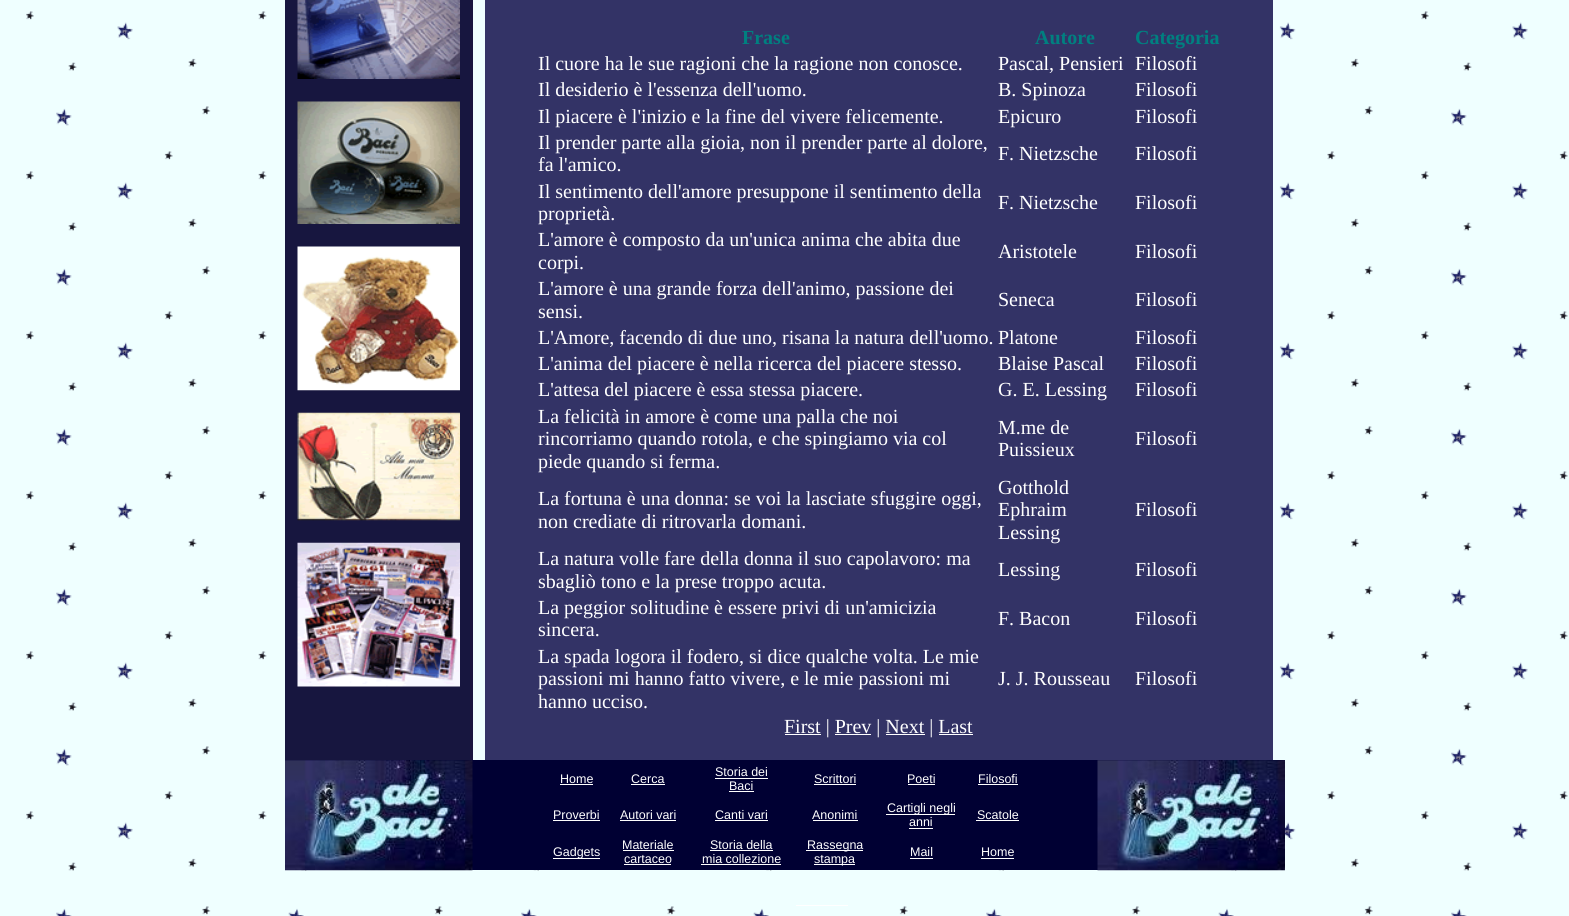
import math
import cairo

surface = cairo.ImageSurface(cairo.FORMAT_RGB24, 1569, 916)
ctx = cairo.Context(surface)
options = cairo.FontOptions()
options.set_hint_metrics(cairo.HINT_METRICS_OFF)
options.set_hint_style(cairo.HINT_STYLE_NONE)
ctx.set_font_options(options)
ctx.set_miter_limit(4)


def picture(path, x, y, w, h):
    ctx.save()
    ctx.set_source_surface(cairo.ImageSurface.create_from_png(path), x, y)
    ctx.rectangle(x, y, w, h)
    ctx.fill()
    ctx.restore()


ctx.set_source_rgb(1, 1, 1)
ctx.paint()
picture("img1.png", 0, 0, 1569, 916)
ctx.set_source_rgb(0.09, 0.086, 0.247)
ctx.rectangle(285, 0, 188, 760)
ctx.fill()
picture("img2.png", 297, 0, 163, 79)
picture("img3.png", 297, 101, 163, 123)
picture("img4.png", 297, 246, 163, 145)
picture("img5.png", 297, 412, 163, 109)
picture("img6.png", 297, 542, 163, 145)
ctx.set_source_rgb(0.2, 0.2, 0.4)
ctx.rectangle(485, 0, 788, 760)
ctx.fill()
ctx.select_font_face("Liberation Serif", cairo.FONT_SLANT_NORMAL, cairo.FONT_WEIGHT_BOLD)
ctx.set_font_size(20)
ctx.set_source_rgb(0, 0.502, 0.502)
ctx.move_to(742, 44)
ctx.show_text("Frase")
ctx.move_to(1035, 44)
ctx.show_text("Autore")
ctx.move_to(1135, 44)
ctx.show_text("Categoria")
ctx.select_font_face("Liberation Serif")
ctx.set_source_rgb(1, 1, 1)
ctx.move_to(538, 70)
ctx.show_text("Il cuore ha le sue ragioni che la ragione non conosce.")
ctx.move_to(998, 70)
ctx.show_text("Pascal, Pensieri")
ctx.move_to(1135, 70)
ctx.show_text("Filosofi")
ctx.move_to(538, 96)
ctx.show_text("Il desiderio è l'essenza dell'uomo.")
ctx.move_to(998, 96)
ctx.show_text("B. Spinoza")
ctx.move_to(1135, 96)
ctx.show_text("Filosofi")
ctx.move_to(538, 123)
ctx.show_text("Il piacere è l'inizio e la fine del vivere felicemente.")
ctx.move_to(998, 123)
ctx.show_text("Epicuro")
ctx.move_to(1135, 123)
ctx.show_text("Filosofi")
ctx.move_to(538, 149)
ctx.show_text("Il prender parte alla gioia, non il prender parte al dolore,")
ctx.move_to(538, 171)
ctx.show_text("fa l'amico.")
ctx.move_to(998, 160)
ctx.show_text("F. Nietzsche")
ctx.move_to(1135, 160)
ctx.show_text("Filosofi")
ctx.move_to(538, 198)
ctx.show_text("Il sentimento dell'amore presuppone il sentimento della")
ctx.move_to(538, 220)
ctx.show_text("proprietà.")
ctx.move_to(998, 209)
ctx.show_text("F. Nietzsche")
ctx.move_to(1135, 209)
ctx.show_text("Filosofi")
ctx.move_to(538, 246)
ctx.show_text("L'amore è composto da un'unica anima che abita due")
ctx.move_to(538, 269)
ctx.show_text("corpi.")
ctx.move_to(998, 258)
ctx.show_text("Aristotele")
ctx.move_to(1135, 258)
ctx.show_text("Filosofi")
ctx.move_to(538, 295)
ctx.show_text("L'amore è una grande forza dell'animo, passione dei")
ctx.move_to(538, 318)
ctx.show_text("sensi.")
ctx.move_to(998, 306)
ctx.show_text("Seneca")
ctx.move_to(1135, 306)
ctx.show_text("Filosofi")
ctx.move_to(538, 344)
ctx.show_text("L'Amore, facendo di due uno, risana la natura dell'uomo.")
ctx.move_to(998, 344)
ctx.show_text("Platone")
ctx.move_to(1135, 344)
ctx.show_text("Filosofi")
ctx.move_to(538, 370)
ctx.show_text("L'anima del piacere è nella ricerca del piacere stesso.")
ctx.move_to(998, 370)
ctx.show_text("Blaise Pascal")
ctx.move_to(1135, 370)
ctx.show_text("Filosofi")
ctx.move_to(538, 396)
ctx.show_text("L'attesa del piacere è essa stessa piacere.")
ctx.move_to(998, 396)
ctx.show_text("G. E. Lessing")
ctx.move_to(1135, 396)
ctx.show_text("Filosofi")
ctx.move_to(538, 423)
ctx.show_text("La felicità in amore è come una palla che noi")
ctx.move_to(538, 445)
ctx.show_text("rincorriamo quando rotola, e che spingiamo via col")
ctx.move_to(538, 468)
ctx.show_text("piede quando si ferma.")
ctx.move_to(998, 434)
ctx.show_text("M.me de")
ctx.move_to(998, 456)
ctx.show_text("Puissieux")
ctx.move_to(1135, 445)
ctx.show_text("Filosofi")
ctx.move_to(538, 505)
ctx.show_text("La fortuna è una donna: se voi la lasciate sfuggire oggi,")
ctx.move_to(538, 528)
ctx.show_text("non crediate di ritrovarla domani.")
ctx.move_to(998, 494)
ctx.show_text("Gotthold")
ctx.move_to(998, 516)
ctx.show_text("Ephraim")
ctx.move_to(998, 539)
ctx.show_text("Lessing")
ctx.move_to(1135, 516)
ctx.show_text("Filosofi")
ctx.move_to(538, 565)
ctx.show_text("La natura volle fare della donna il suo capolavoro: ma")
ctx.move_to(538, 588)
ctx.show_text("sbagliò tono e la prese troppo acuta.")
ctx.move_to(998, 576)
ctx.show_text("Lessing")
ctx.move_to(1135, 576)
ctx.show_text("Filosofi")
ctx.move_to(538, 614)
ctx.show_text("La peggior solitudine è essere privi di un'amicizia")
ctx.move_to(538, 636)
ctx.show_text("sincera.")
ctx.move_to(998, 625)
ctx.show_text("F. Bacon")
ctx.move_to(1135, 625)
ctx.show_text("Filosofi")
ctx.move_to(538, 663)
ctx.show_text("La spada logora il fodero, si dice qualche volta. Le mie")
ctx.move_to(538, 685)
ctx.show_text("passioni mi hanno fatto vivere, e le mie passioni mi")
ctx.move_to(538, 708)
ctx.show_text("hanno ucciso.")
ctx.move_to(998, 685)
ctx.show_text("J. J. Rousseau")
ctx.move_to(1135, 685)
ctx.show_text("Filosofi")
ctx.rectangle(785, 734, 36, 1)
ctx.fill()
ctx.move_to(784, 733)
ctx.show_text("First | Prev | Next | Last")
ctx.rectangle(835, 734, 36, 1)
ctx.fill()
ctx.rectangle(886, 734, 39, 1)
ctx.fill()
ctx.rectangle(939, 734, 34, 1)
ctx.fill()
ctx.set_source_rgb(0, 0, 0.2)
ctx.rectangle(285, 760, 1000, 110)
ctx.fill()
picture("img7.png", 285, 760, 188, 111)
ctx.select_font_face("Liberation Sans")
ctx.set_font_size(12.5)
ctx.set_source_rgb(1, 1, 1)
ctx.move_to(560, 783)
ctx.show_text("Home")
ctx.rectangle(560, 784, 33, 1)
ctx.fill()
ctx.move_to(631, 783)
ctx.show_text("Cerca")
ctx.rectangle(631, 784, 34, 1)
ctx.fill()
ctx.move_to(715, 776)
ctx.show_text("Storia dei")
ctx.rectangle(715, 778, 53, 1)
ctx.fill()
ctx.move_to(729, 790)
ctx.show_text("Baci")
ctx.rectangle(729, 791, 25, 1)
ctx.fill()
ctx.move_to(814, 783)
ctx.show_text("Scrittori")
ctx.rectangle(814, 784, 42, 1)
ctx.fill()
ctx.move_to(907, 783)
ctx.show_text("Poeti")
ctx.rectangle(908, 784, 27, 1)
ctx.fill()
ctx.move_to(978, 783)
ctx.show_text("Filosofi")
ctx.rectangle(978, 784, 40, 1)
ctx.fill()
picture("img8.png", 1097, 760, 188, 111)
ctx.move_to(553, 819)
ctx.show_text("Proverbi")
ctx.rectangle(553, 820, 47, 1)
ctx.fill()
ctx.move_to(620, 819)
ctx.show_text("Autori vari")
ctx.rectangle(620, 820, 56, 1)
ctx.fill()
ctx.move_to(715, 819)
ctx.show_text("Canti vari")
ctx.rectangle(715, 820, 53, 1)
ctx.fill()
ctx.move_to(812, 819)
ctx.show_text("Anonimi")
ctx.rectangle(813, 820, 45, 1)
ctx.fill()
ctx.rectangle(886, 814, 69, 1)
ctx.fill()
ctx.move_to(887, 812)
ctx.show_text("Cartigli negli")
ctx.move_to(909, 826)
ctx.show_text("anni")
ctx.rectangle(909, 828, 24, 1)
ctx.fill()
ctx.move_to(977, 819)
ctx.show_text("Scatole")
ctx.rectangle(976, 820, 43, 1)
ctx.fill()
ctx.rectangle(553, 858, 47, 1)
ctx.fill()
ctx.move_to(553, 856)
ctx.show_text("Gadgets")
ctx.move_to(622, 849)
ctx.show_text("Materiale")
ctx.rectangle(623, 850, 51, 1)
ctx.fill()
ctx.move_to(624, 863)
ctx.show_text("cartaceo")
ctx.rectangle(624, 864, 47, 1)
ctx.fill()
ctx.move_to(710, 849)
ctx.show_text("Storia della")
ctx.rectangle(710, 850, 63, 1)
ctx.fill()
ctx.move_to(702, 863)
ctx.show_text("mia collezione")
ctx.rectangle(701, 864, 80, 1)
ctx.fill()
ctx.rectangle(806, 850, 57, 1)
ctx.fill()
ctx.move_to(807, 849)
ctx.show_text("Rassegna")
ctx.rectangle(814, 864, 41, 1)
ctx.fill()
ctx.move_to(814, 863)
ctx.show_text("stampa")
ctx.move_to(910, 856)
ctx.show_text("Mail")
ctx.rectangle(910, 858, 23, 1)
ctx.fill()
ctx.move_to(981, 856)
ctx.show_text("Home")
ctx.rectangle(981, 858, 33, 1)
ctx.fill()
ctx.rectangle(796, 905, 52, 1)
ctx.fill()
surface.write_to_png("page.png")
